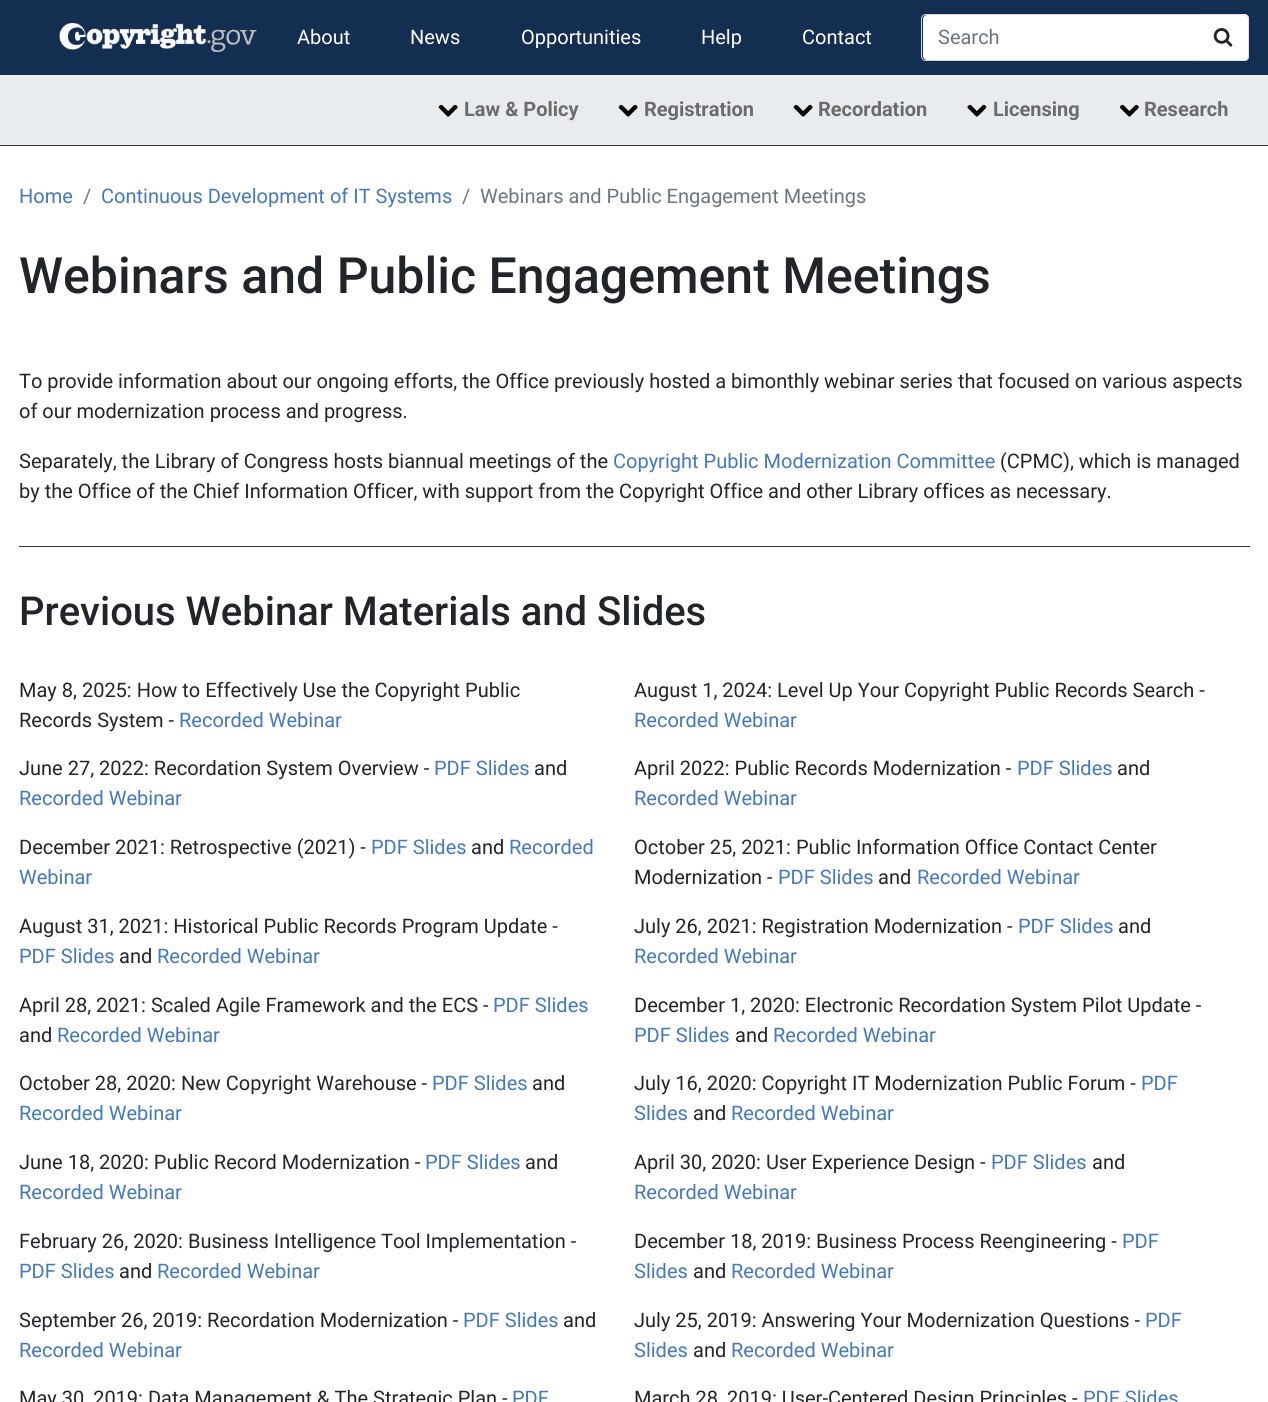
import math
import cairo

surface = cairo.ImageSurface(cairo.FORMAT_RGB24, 1268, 1402)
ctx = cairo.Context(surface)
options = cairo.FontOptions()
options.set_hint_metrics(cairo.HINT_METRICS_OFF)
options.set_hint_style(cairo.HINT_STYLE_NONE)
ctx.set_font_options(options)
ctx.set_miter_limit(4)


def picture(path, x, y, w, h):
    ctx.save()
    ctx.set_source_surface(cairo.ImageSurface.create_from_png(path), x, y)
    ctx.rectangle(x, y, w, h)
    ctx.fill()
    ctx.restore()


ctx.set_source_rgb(1, 1, 1)
ctx.paint()
ctx.set_source_rgb(0.078, 0.18, 0.318)
ctx.rectangle(0, 0, 1268, 75)
ctx.fill()
picture("img1.png", 59, 23, 198, 29)
ctx.select_font_face("Roboto")
ctx.set_font_size(20)
ctx.set_source_rgb(1, 1, 1)
ctx.move_to(297, 44)
ctx.show_text("About")
ctx.move_to(410, 44)
ctx.show_text("News")
ctx.move_to(521, 44)
ctx.show_text("Opportunities")
ctx.move_to(701, 44)
ctx.show_text("Help")
ctx.move_to(802, 44)
ctx.show_text("Contact")
ctx.new_path()
ctx.move_to(927, 15)
ctx.line_to(1199, 15)
ctx.line_to(1199, 60)
ctx.line_to(927, 60)
ctx.curve_to(925, 60, 923, 58, 923, 56)
ctx.line_to(923, 19)
ctx.curve_to(923, 17, 925, 15, 927, 15)
ctx.close_path()
ctx.fill()
ctx.new_path()
ctx.move_to(926, 14.5)
ctx.line_to(1199.5, 14.5)
ctx.line_to(1199.5, 60.5)
ctx.line_to(926, 60.5)
ctx.curve_to(923.5, 60.5, 921.5, 58.5, 921.5, 56)
ctx.line_to(921.5, 19)
ctx.curve_to(921.5, 16.5, 923.5, 14.5, 926, 14.5)
ctx.close_path()
ctx.set_source_rgb(0.808, 0.831, 0.855)
ctx.set_line_width(1)
ctx.stroke()
ctx.set_source_rgb(0.424, 0.459, 0.49)
ctx.move_to(938, 44)
ctx.show_text("Search")
ctx.set_source_rgb(1, 1, 1)
ctx.new_path()
ctx.move_to(1199, 14)
ctx.line_to(1244, 14)
ctx.curve_to(1247, 14, 1249, 16, 1249, 19)
ctx.line_to(1249, 56)
ctx.curve_to(1249, 59, 1247, 61, 1244, 61)
ctx.line_to(1199, 61)
ctx.close_path()
ctx.fill()
ctx.set_source_rgb(0.871, 0.886, 0.902)
ctx.set_fill_rule(cairo.FILL_RULE_EVEN_ODD)
ctx.new_path()
ctx.move_to(1199, 14)
ctx.line_to(1244, 14)
ctx.curve_to(1247, 14, 1249, 16, 1249, 19)
ctx.line_to(1249, 56)
ctx.curve_to(1249, 59, 1247, 61, 1244, 61)
ctx.line_to(1199, 61)
ctx.close_path()
ctx.move_to(1199, 15)
ctx.line_to(1244, 15)
ctx.curve_to(1246, 15, 1248, 17, 1248, 19)
ctx.line_to(1248, 56)
ctx.curve_to(1248, 58, 1246, 60, 1244, 60)
ctx.line_to(1199, 60)
ctx.close_path()
ctx.fill()
picture("img2.png", 1213, 28, 20, 19)
ctx.set_source_rgb(0.914, 0.925, 0.937)
ctx.rectangle(0, 75, 1268, 70)
ctx.fill()
ctx.set_source_rgb(0.204, 0.227, 0.251)
ctx.rectangle(0, 145, 1268, 1)
ctx.fill()
picture("img3.png", 438, 104, 20, 13)
ctx.select_font_face("Roboto", cairo.FONT_SLANT_NORMAL, cairo.FONT_WEIGHT_BOLD)
ctx.set_source_rgb(0.416, 0.42, 0.424)
ctx.move_to(464, 116)
ctx.show_text("Law & Policy")
picture("img3.png", 618, 104, 20, 13)
ctx.move_to(644, 116)
ctx.show_text("Registration")
picture("img3.png", 793, 104, 20, 13)
ctx.move_to(818, 116)
ctx.show_text("Recordation")
picture("img4.png", 967, 104, 20, 13)
ctx.move_to(993, 116)
ctx.show_text("Licensing")
picture("img5.png", 1120, 104, 19, 13)
ctx.move_to(1144, 116)
ctx.show_text("Research")
ctx.select_font_face("Roboto")
ctx.set_source_rgb(0.263, 0.471, 0.733)
ctx.move_to(19, 203)
ctx.show_text("Home")
ctx.set_source_rgb(0.424, 0.459, 0.49)
ctx.move_to(83, 203)
ctx.show_text("/")
ctx.set_source_rgb(0.263, 0.471, 0.733)
ctx.move_to(101, 203)
ctx.show_text("Continuous Development of IT Systems")
ctx.set_source_rgb(0.424, 0.459, 0.49)
ctx.move_to(462, 203)
ctx.show_text("/")
ctx.move_to(480, 203)
ctx.show_text("Webinars and Public Engagement Meetings")
ctx.select_font_face("Roboto Medium")
ctx.set_font_size(50)
ctx.set_source_rgb(0.129, 0.145, 0.161)
ctx.move_to(19, 293)
ctx.show_text("Webinars and Public Engagement Meetings")
ctx.select_font_face("Roboto")
ctx.set_font_size(20)
ctx.move_to(19, 388)
ctx.show_text("To provide information about our ongoing efforts, the Office previously hosted a bimonthly webinar series that focused on various aspects")
ctx.move_to(19, 418)
ctx.show_text("of our modernization process and progress.")
ctx.move_to(19, 468)
ctx.show_text("Separately, the Library of Congress hosts biannual meetings of the")
ctx.set_source_rgb(0.263, 0.471, 0.733)
ctx.move_to(613, 468)
ctx.show_text("Copyright Public Modernization Committee")
ctx.set_source_rgb(0.129, 0.145, 0.161)
ctx.move_to(1000, 468)
ctx.show_text("(CPMC), which is managed")
ctx.move_to(19, 498)
ctx.show_text("by the Office of the Chief Information Officer, with support from the Copyright Office and other Library offices as necessary.")
ctx.set_source_rgb(0.204, 0.227, 0.251)
ctx.rectangle(19, 546, 1231, 1)
ctx.fill()
ctx.select_font_face("Roboto Medium")
ctx.set_font_size(40)
ctx.set_source_rgb(0.129, 0.145, 0.161)
ctx.move_to(19, 625)
ctx.show_text("Previous Webinar Materials and Slides")
ctx.select_font_face("Roboto")
ctx.set_font_size(20)
ctx.move_to(19, 697)
ctx.show_text("May 8, 2025: How to Effectively Use the Copyright Public")
ctx.move_to(19, 727)
ctx.show_text("Records System -")
ctx.set_source_rgb(0.263, 0.471, 0.733)
ctx.move_to(179, 727)
ctx.show_text("Recorded Webinar")
ctx.set_source_rgb(0.129, 0.145, 0.161)
ctx.move_to(634, 697)
ctx.show_text("August 1, 2024: Level Up Your Copyright Public Records Search -")
ctx.set_source_rgb(0.263, 0.471, 0.733)
ctx.move_to(634, 727)
ctx.show_text("Recorded Webinar")
ctx.set_source_rgb(0.129, 0.145, 0.161)
ctx.move_to(19, 775)
ctx.show_text("June 27, 2022: Recordation System Overview -")
ctx.set_source_rgb(0.263, 0.471, 0.733)
ctx.move_to(434, 775)
ctx.show_text("PDF Slides")
ctx.set_source_rgb(0.129, 0.145, 0.161)
ctx.move_to(534, 775)
ctx.show_text("and")
ctx.set_source_rgb(0.263, 0.471, 0.733)
ctx.move_to(19, 805)
ctx.show_text("Recorded Webinar")
ctx.set_source_rgb(0.129, 0.145, 0.161)
ctx.move_to(634, 775)
ctx.show_text("April 2022: Public Records Modernization -")
ctx.set_source_rgb(0.263, 0.471, 0.733)
ctx.move_to(1017, 775)
ctx.show_text("PDF Slides")
ctx.set_source_rgb(0.129, 0.145, 0.161)
ctx.move_to(1117, 775)
ctx.show_text("and")
ctx.set_source_rgb(0.263, 0.471, 0.733)
ctx.move_to(634, 805)
ctx.show_text("Recorded Webinar")
ctx.set_source_rgb(0.129, 0.145, 0.161)
ctx.move_to(19, 854)
ctx.show_text("December 2021: Retrospective (2021) -")
ctx.set_source_rgb(0.263, 0.471, 0.733)
ctx.move_to(371, 854)
ctx.show_text("PDF Slides")
ctx.set_source_rgb(0.129, 0.145, 0.161)
ctx.move_to(471, 854)
ctx.show_text("and")
ctx.set_source_rgb(0.263, 0.471, 0.733)
ctx.move_to(509, 854)
ctx.show_text("Recorded")
ctx.move_to(19, 884)
ctx.show_text("Webinar")
ctx.set_source_rgb(0.129, 0.145, 0.161)
ctx.move_to(634, 854)
ctx.show_text("October 25, 2021: Public Information Office Contact Center")
ctx.move_to(634, 884)
ctx.show_text("Modernization -")
ctx.set_source_rgb(0.263, 0.471, 0.733)
ctx.move_to(778, 884)
ctx.show_text("PDF Slides")
ctx.set_source_rgb(0.129, 0.145, 0.161)
ctx.move_to(878, 884)
ctx.show_text("and")
ctx.set_source_rgb(0.263, 0.471, 0.733)
ctx.move_to(917, 884)
ctx.show_text("Recorded Webinar")
ctx.set_source_rgb(0.129, 0.145, 0.161)
ctx.move_to(19, 933)
ctx.show_text("August 31, 2021: Historical Public Records Program Update -")
ctx.set_source_rgb(0.263, 0.471, 0.733)
ctx.move_to(19, 963)
ctx.show_text("PDF Slides")
ctx.set_source_rgb(0.129, 0.145, 0.161)
ctx.move_to(119, 963)
ctx.show_text("and")
ctx.set_source_rgb(0.263, 0.471, 0.733)
ctx.move_to(157, 963)
ctx.show_text("Recorded Webinar")
ctx.set_source_rgb(0.129, 0.145, 0.161)
ctx.move_to(634, 933)
ctx.show_text("July 26, 2021: Registration Modernization -")
ctx.set_source_rgb(0.263, 0.471, 0.733)
ctx.move_to(1018, 933)
ctx.show_text("PDF Slides")
ctx.set_source_rgb(0.129, 0.145, 0.161)
ctx.move_to(1118, 933)
ctx.show_text("and")
ctx.set_source_rgb(0.263, 0.471, 0.733)
ctx.move_to(634, 963)
ctx.show_text("Recorded Webinar")
ctx.set_source_rgb(0.129, 0.145, 0.161)
ctx.move_to(19, 1012)
ctx.show_text("April 28, 2021: Scaled Agile Framework and the ECS -")
ctx.set_source_rgb(0.263, 0.471, 0.733)
ctx.move_to(493, 1012)
ctx.show_text("PDF Slides")
ctx.set_source_rgb(0.129, 0.145, 0.161)
ctx.move_to(19, 1042)
ctx.show_text("and")
ctx.set_source_rgb(0.263, 0.471, 0.733)
ctx.move_to(57, 1042)
ctx.show_text("Recorded Webinar")
ctx.set_source_rgb(0.129, 0.145, 0.161)
ctx.move_to(634, 1012)
ctx.show_text("December 1, 2020: Electronic Recordation System Pilot Update -")
ctx.set_source_rgb(0.263, 0.471, 0.733)
ctx.move_to(634, 1042)
ctx.show_text("PDF Slides")
ctx.set_source_rgb(0.129, 0.145, 0.161)
ctx.move_to(735, 1042)
ctx.show_text("and")
ctx.set_source_rgb(0.263, 0.471, 0.733)
ctx.move_to(773, 1042)
ctx.show_text("Recorded Webinar")
ctx.set_source_rgb(0.129, 0.145, 0.161)
ctx.move_to(19, 1090)
ctx.show_text("October 28, 2020: New Copyright Warehouse -")
ctx.set_source_rgb(0.263, 0.471, 0.733)
ctx.move_to(432, 1090)
ctx.show_text("PDF Slides")
ctx.set_source_rgb(0.129, 0.145, 0.161)
ctx.move_to(532, 1090)
ctx.show_text("and")
ctx.set_source_rgb(0.263, 0.471, 0.733)
ctx.move_to(19, 1120)
ctx.show_text("Recorded Webinar")
ctx.set_source_rgb(0.129, 0.145, 0.161)
ctx.move_to(634, 1090)
ctx.show_text("July 16, 2020: Copyright IT Modernization Public Forum -")
ctx.set_source_rgb(0.263, 0.471, 0.733)
ctx.move_to(1141, 1090)
ctx.show_text("PDF")
ctx.move_to(634, 1120)
ctx.show_text("Slides")
ctx.set_source_rgb(0.129, 0.145, 0.161)
ctx.move_to(693, 1120)
ctx.show_text("and")
ctx.set_source_rgb(0.263, 0.471, 0.733)
ctx.move_to(731, 1120)
ctx.show_text("Recorded Webinar")
ctx.set_source_rgb(0.129, 0.145, 0.161)
ctx.move_to(19, 1169)
ctx.show_text("June 18, 2020: Public Record Modernization -")
ctx.set_source_rgb(0.263, 0.471, 0.733)
ctx.move_to(425, 1169)
ctx.show_text("PDF Slides")
ctx.set_source_rgb(0.129, 0.145, 0.161)
ctx.move_to(525, 1169)
ctx.show_text("and")
ctx.set_source_rgb(0.263, 0.471, 0.733)
ctx.move_to(19, 1199)
ctx.show_text("Recorded Webinar")
ctx.set_source_rgb(0.129, 0.145, 0.161)
ctx.move_to(634, 1169)
ctx.show_text("April 30, 2020: User Experience Design -")
ctx.set_source_rgb(0.263, 0.471, 0.733)
ctx.move_to(991, 1169)
ctx.show_text("PDF Slides")
ctx.set_source_rgb(0.129, 0.145, 0.161)
ctx.move_to(1092, 1169)
ctx.show_text("and")
ctx.set_source_rgb(0.263, 0.471, 0.733)
ctx.move_to(634, 1199)
ctx.show_text("Recorded Webinar")
ctx.set_source_rgb(0.129, 0.145, 0.161)
ctx.move_to(19, 1248)
ctx.show_text("February 26, 2020: Business Intelligence Tool Implementation -")
ctx.set_source_rgb(0.263, 0.471, 0.733)
ctx.move_to(19, 1278)
ctx.show_text("PDF Slides")
ctx.set_source_rgb(0.129, 0.145, 0.161)
ctx.move_to(119, 1278)
ctx.show_text("and")
ctx.set_source_rgb(0.263, 0.471, 0.733)
ctx.move_to(157, 1278)
ctx.show_text("Recorded Webinar")
ctx.set_source_rgb(0.129, 0.145, 0.161)
ctx.move_to(634, 1248)
ctx.show_text("December 18, 2019: Business Process Reengineering -")
ctx.set_source_rgb(0.263, 0.471, 0.733)
ctx.move_to(1122, 1248)
ctx.show_text("PDF")
ctx.move_to(634, 1278)
ctx.show_text("Slides")
ctx.set_source_rgb(0.129, 0.145, 0.161)
ctx.move_to(693, 1278)
ctx.show_text("and")
ctx.set_source_rgb(0.263, 0.471, 0.733)
ctx.move_to(731, 1278)
ctx.show_text("Recorded Webinar")
ctx.set_source_rgb(0.129, 0.145, 0.161)
ctx.move_to(19, 1327)
ctx.show_text("September 26, 2019: Recordation Modernization -")
ctx.set_source_rgb(0.263, 0.471, 0.733)
ctx.move_to(463, 1327)
ctx.show_text("PDF Slides")
ctx.set_source_rgb(0.129, 0.145, 0.161)
ctx.move_to(563, 1327)
ctx.show_text("and")
ctx.set_source_rgb(0.263, 0.471, 0.733)
ctx.move_to(19, 1357)
ctx.show_text("Recorded Webinar")
ctx.set_source_rgb(0.129, 0.145, 0.161)
ctx.move_to(634, 1327)
ctx.show_text("July 25, 2019: Answering Your Modernization Questions -")
ctx.set_source_rgb(0.263, 0.471, 0.733)
ctx.move_to(1145, 1327)
ctx.show_text("PDF")
ctx.move_to(634, 1357)
ctx.show_text("Slides")
ctx.set_source_rgb(0.129, 0.145, 0.161)
ctx.move_to(693, 1357)
ctx.show_text("and")
ctx.set_source_rgb(0.263, 0.471, 0.733)
ctx.move_to(731, 1357)
ctx.show_text("Recorded Webinar")
ctx.set_source_rgb(0.129, 0.145, 0.161)
ctx.move_to(19, 1405)
ctx.show_text("May 30, 2019: Data Management & The Strategic Plan -")
ctx.set_source_rgb(0.263, 0.471, 0.733)
ctx.move_to(512, 1405)
ctx.show_text("PDF")
ctx.set_source_rgb(0.129, 0.145, 0.161)
ctx.move_to(634, 1405)
ctx.show_text("March 28, 2019: User-Centered Design Principles -")
ctx.set_source_rgb(0.263, 0.471, 0.733)
ctx.move_to(1083, 1405)
ctx.show_text("PDF Slides")
surface.write_to_png("page.png")
